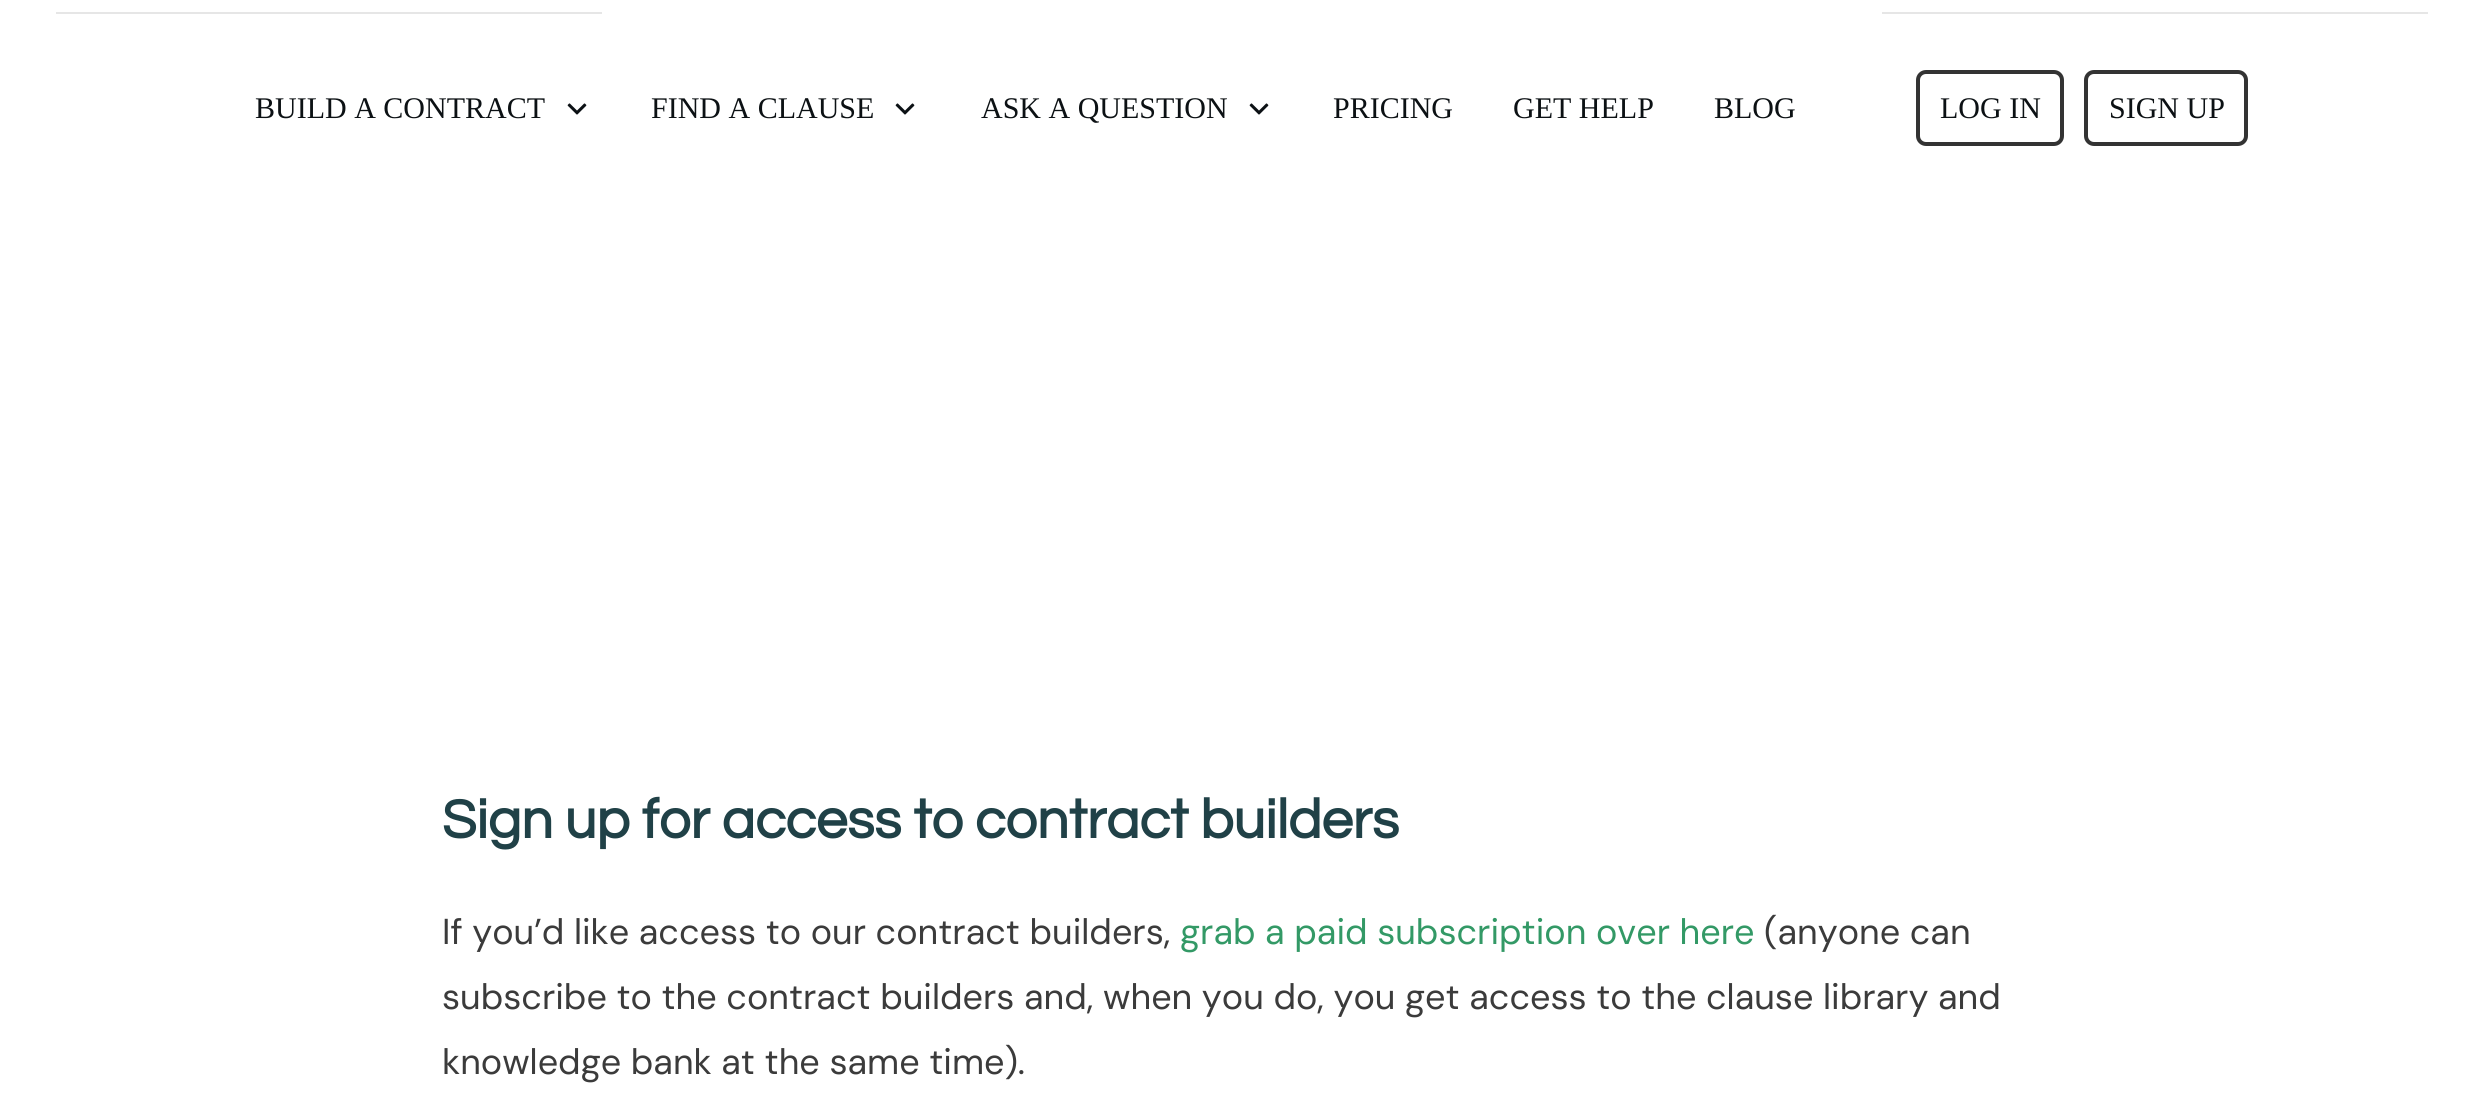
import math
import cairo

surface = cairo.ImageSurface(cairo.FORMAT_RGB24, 2484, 1112)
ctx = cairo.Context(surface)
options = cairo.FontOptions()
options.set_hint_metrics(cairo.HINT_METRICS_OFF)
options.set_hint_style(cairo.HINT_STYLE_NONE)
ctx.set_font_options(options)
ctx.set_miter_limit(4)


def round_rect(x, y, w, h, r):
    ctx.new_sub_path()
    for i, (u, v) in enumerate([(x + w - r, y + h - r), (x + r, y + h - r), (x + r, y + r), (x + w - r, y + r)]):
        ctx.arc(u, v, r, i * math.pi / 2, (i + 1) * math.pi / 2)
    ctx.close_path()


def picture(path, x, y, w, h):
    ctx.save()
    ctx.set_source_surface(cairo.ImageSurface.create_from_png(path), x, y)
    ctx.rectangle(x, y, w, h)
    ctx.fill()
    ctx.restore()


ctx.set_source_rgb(1, 1, 1)
ctx.paint()
ctx.set_source_rgb(0.902, 0.902, 0.902)
ctx.rectangle(56, 12, 546, 2)
ctx.fill()
ctx.rectangle(1882, 12, 546, 2)
ctx.fill()
ctx.select_font_face("Liberation Serif")
ctx.set_font_size(30)
ctx.set_source_rgb(0.047, 0.067, 0.082)
ctx.move_to(255, 118)
ctx.show_text("BUILD A CONTRACT")
picture("img1.png", 567, 103, 20, 12)
ctx.move_to(651, 118)
ctx.show_text("FIND A CLAUSE")
picture("img1.png", 895, 103, 20, 12)
ctx.move_to(981, 118)
ctx.show_text("ASK A QUESTION")
picture("img1.png", 1249, 103, 20, 12)
ctx.move_to(1333, 118)
ctx.show_text("PRICING")
ctx.move_to(1513, 118)
ctx.show_text("GET HELP")
ctx.move_to(1714, 118)
ctx.show_text("BLOG")
round_rect(1918, 72, 144, 72, 8)
ctx.set_source_rgb(0.2, 0.2, 0.2)
ctx.set_line_width(4)
ctx.stroke()
ctx.set_source_rgb(0.047, 0.067, 0.082)
ctx.move_to(1940, 118)
ctx.show_text("LOG IN")
round_rect(2086, 72, 160, 72, 8)
ctx.set_source_rgb(0.2, 0.2, 0.2)
ctx.stroke()
ctx.set_source_rgb(0.047, 0.067, 0.082)
ctx.move_to(2109, 118)
ctx.show_text("SIGN UP")
ctx.select_font_face("Questrial", cairo.FONT_SLANT_NORMAL, cairo.FONT_WEIGHT_BOLD)
ctx.set_font_size(56)
ctx.set_source_rgb(0.125, 0.255, 0.278)
ctx.move_to(442, 838)
ctx.show_text("Sign up for access to contract builders")
ctx.select_font_face("DM Sans")
ctx.set_font_size(36)
ctx.set_source_rgb(0.231, 0.231, 0.231)
ctx.move_to(442, 944)
ctx.show_text("If you’d like access to our contract builders,")
ctx.set_source_rgb(0.2, 0.6, 0.4)
ctx.move_to(1180, 944)
ctx.show_text("grab a paid subscription over here")
ctx.set_source_rgb(0.231, 0.231, 0.231)
ctx.move_to(1764, 944)
ctx.show_text("(anyone can")
ctx.move_to(442, 1009)
ctx.show_text("subscribe to the contract builders and, when you do, you get access to the clause library and")
ctx.move_to(442, 1074)
ctx.show_text("knowledge bank at the same time).")
surface.write_to_png("page.png")
